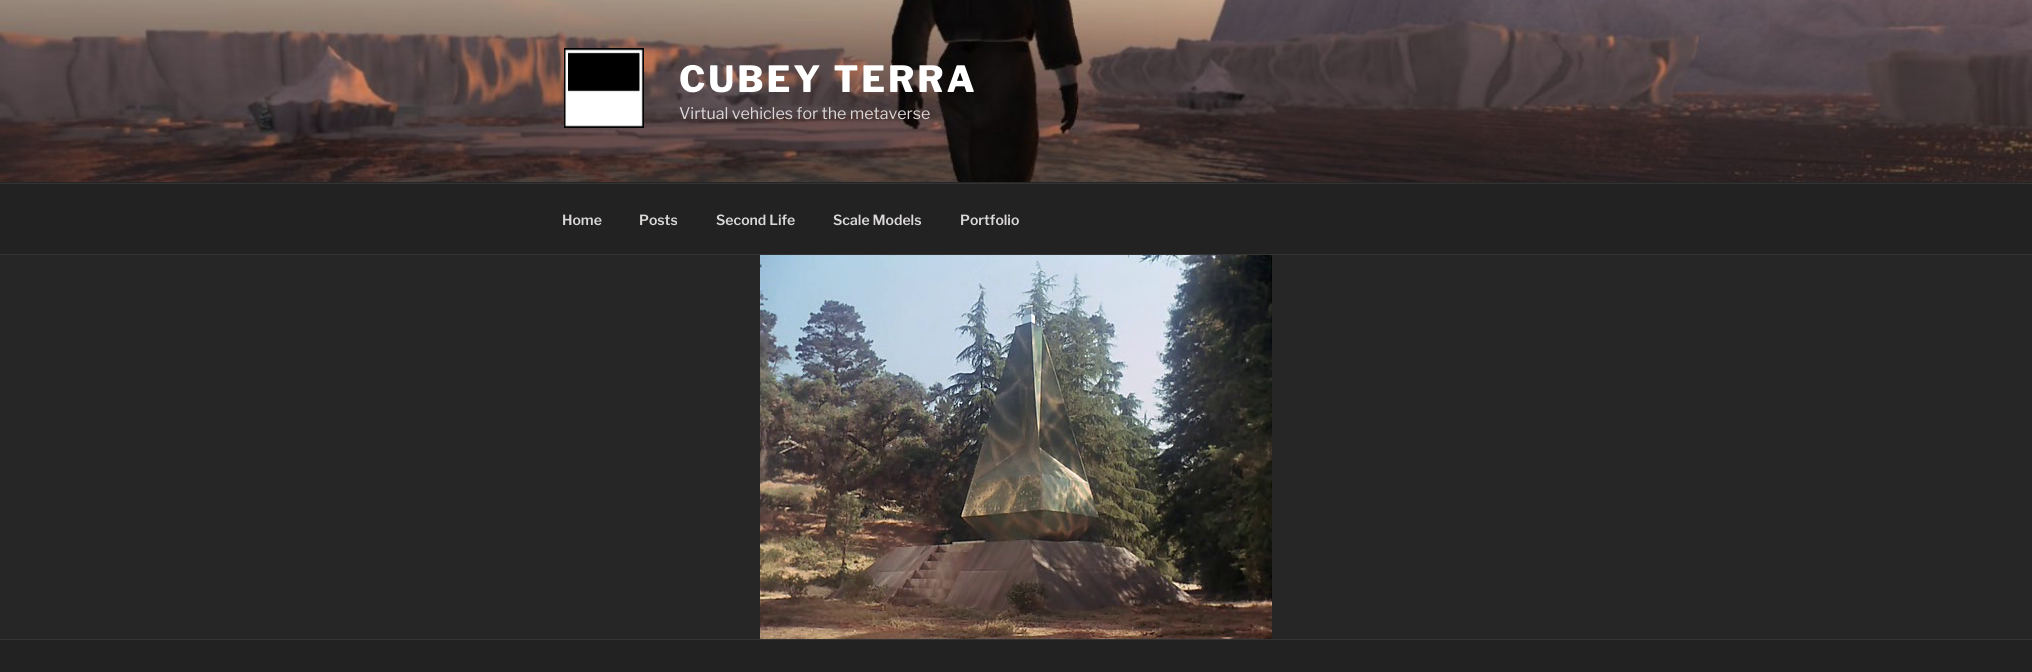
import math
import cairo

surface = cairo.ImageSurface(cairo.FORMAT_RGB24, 2032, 672)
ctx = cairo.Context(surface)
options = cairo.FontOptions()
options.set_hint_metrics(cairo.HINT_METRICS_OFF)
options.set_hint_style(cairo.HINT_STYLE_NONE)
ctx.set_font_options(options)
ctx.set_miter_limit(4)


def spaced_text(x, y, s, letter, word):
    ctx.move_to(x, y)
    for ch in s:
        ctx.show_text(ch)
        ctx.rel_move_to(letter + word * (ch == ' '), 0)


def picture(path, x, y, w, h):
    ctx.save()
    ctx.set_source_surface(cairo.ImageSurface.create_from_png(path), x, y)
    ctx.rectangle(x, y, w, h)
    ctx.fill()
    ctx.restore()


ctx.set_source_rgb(0.133, 0.133, 0.133)
ctx.paint()
ctx.set_source_rgb(0.149, 0.149, 0.149)
ctx.rectangle(0, 182, 2032, 1)
ctx.fill()
picture("img1.png", 0, 0, 2032, 182)
picture("img2.png", 564, 48, 80, 80)
ctx.select_font_face("Libre Franklin ExtraBold")
ctx.set_font_size(36)
ctx.set_source_rgb(1, 1, 1)
spaced_text(679, 92, "CUBEY TERRA", 2.9, 0)
ctx.select_font_face("Libre Franklin")
ctx.set_font_size(16)
ctx.set_source_rgb(0.859, 0.847, 0.847)
ctx.move_to(679, 119)
ctx.show_text("Virtual vehicles for the metaverse")
ctx.set_source_rgb(0.2, 0.2, 0.2)
ctx.rectangle(0, 183, 2032, 1)
ctx.fill()
ctx.rectangle(0, 254, 2032, 1)
ctx.fill()
ctx.select_font_face("Libre Franklin SemiBold")
ctx.set_font_size(14)
ctx.set_source_rgb(0.859, 0.847, 0.847)
ctx.move_to(562, 225)
ctx.show_text("Home")
ctx.move_to(639, 225)
ctx.show_text("Posts")
ctx.move_to(716, 225)
ctx.show_text("Second Life")
ctx.move_to(833, 225)
ctx.show_text("Scale Models")
ctx.move_to(960, 225)
ctx.show_text("Portfolio")
ctx.set_source_rgb(0.149, 0.149, 0.149)
ctx.rectangle(0, 255, 2032, 384)
ctx.fill()
ctx.set_source_rgb(0.2, 0.2, 0.2)
ctx.rectangle(0, 639, 2032, 1)
ctx.fill()
picture("img3.png", 760, 255, 512, 384)
surface.write_to_png("page.png")
